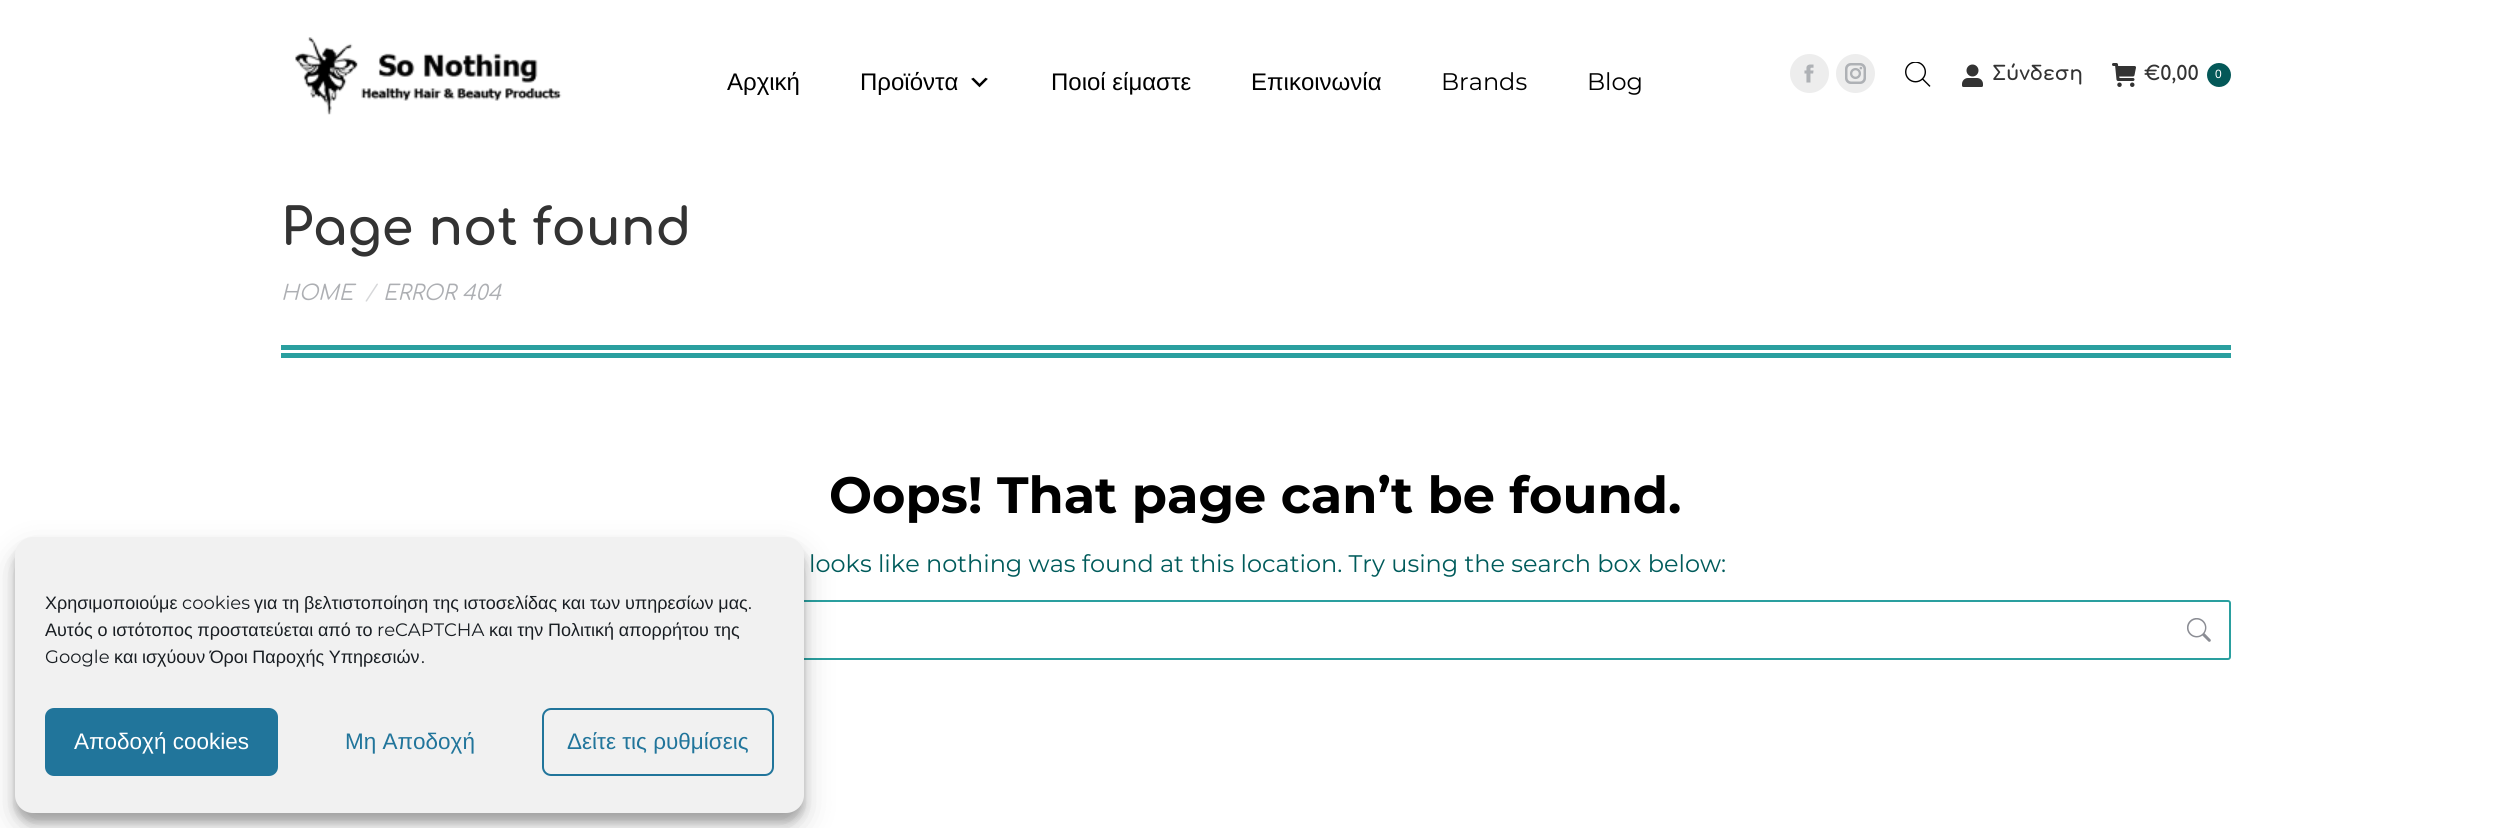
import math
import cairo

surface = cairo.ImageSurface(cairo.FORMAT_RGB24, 2510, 828)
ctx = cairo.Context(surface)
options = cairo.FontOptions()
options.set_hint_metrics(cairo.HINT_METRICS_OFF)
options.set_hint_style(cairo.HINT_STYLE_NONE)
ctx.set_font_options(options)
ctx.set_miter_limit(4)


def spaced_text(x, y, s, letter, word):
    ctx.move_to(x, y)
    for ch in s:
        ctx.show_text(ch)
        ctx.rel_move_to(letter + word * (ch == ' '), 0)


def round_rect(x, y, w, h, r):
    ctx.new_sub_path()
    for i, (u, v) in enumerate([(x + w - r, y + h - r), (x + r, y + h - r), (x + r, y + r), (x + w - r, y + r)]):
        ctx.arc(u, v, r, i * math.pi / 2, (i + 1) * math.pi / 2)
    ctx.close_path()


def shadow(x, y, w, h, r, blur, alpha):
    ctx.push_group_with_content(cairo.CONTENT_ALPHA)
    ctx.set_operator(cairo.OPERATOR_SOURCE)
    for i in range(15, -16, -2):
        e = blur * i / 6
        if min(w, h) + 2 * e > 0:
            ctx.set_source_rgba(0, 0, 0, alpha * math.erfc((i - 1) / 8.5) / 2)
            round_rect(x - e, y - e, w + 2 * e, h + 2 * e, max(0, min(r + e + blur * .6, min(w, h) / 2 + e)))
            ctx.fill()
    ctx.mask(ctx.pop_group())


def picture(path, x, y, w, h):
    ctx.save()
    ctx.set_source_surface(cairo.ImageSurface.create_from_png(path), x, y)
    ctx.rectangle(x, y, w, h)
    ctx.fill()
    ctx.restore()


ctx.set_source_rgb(1, 1, 1)
ctx.paint()
picture("img1.png", 295, 37, 267, 78)
ctx.select_font_face("Liberation Sans")
ctx.set_font_size(24)
ctx.set_source_rgb(0, 0, 0)
ctx.move_to(727, 90)
ctx.show_text("Αρχική")
ctx.move_to(860, 90)
ctx.show_text("Προϊόντα")
picture("img2.png", 971, 77, 17, 11)
ctx.move_to(1051, 90)
ctx.show_text("Ποιοί είμαστε")
ctx.move_to(1251, 90)
ctx.show_text("Επικοινωνία")
ctx.select_font_face("Montserrat")
ctx.move_to(1441, 90)
ctx.show_text("Brands")
ctx.move_to(1587, 90)
ctx.show_text("Blog")
ctx.set_source_rgb(0.929, 0.929, 0.929)
ctx.new_path()
ctx.arc(1809.5, 73.5, 19.5, 0, 2 * math.pi)
ctx.fill()
picture("img3.png", 1804, 64, 10, 19)
ctx.arc(1855.5, 73.5, 19.5, 0, 2 * math.pi)
ctx.fill()
picture("img4.png", 1845, 63, 21, 21)
picture("img5.png", 1905, 62, 26, 25)
picture("img6.png", 1962, 64, 21, 23)
ctx.select_font_face("Comfortaa", cairo.FONT_SLANT_NORMAL, cairo.FONT_WEIGHT_BOLD)
ctx.set_font_size(19.5)
ctx.set_source_rgb(0.2, 0.2, 0.2)
ctx.move_to(1992, 80)
ctx.show_text("Σύνδεση")
picture("img7.png", 2112, 63, 24, 24)
ctx.move_to(2144, 80)
ctx.show_text("€0,00")
ctx.set_source_rgb(0.016, 0.345, 0.345)
ctx.new_path()
ctx.arc(2219, 75, 12, 0, 2 * math.pi)
ctx.fill()
ctx.select_font_face("Liberation Sans")
ctx.set_font_size(12)
ctx.set_source_rgb(1, 1, 1)
ctx.move_to(2215, 78)
ctx.show_text("0")
ctx.select_font_face("Comfortaa", cairo.FONT_SLANT_NORMAL, cairo.FONT_WEIGHT_BOLD)
ctx.set_font_size(51)
ctx.set_source_rgb(0.2, 0.2, 0.2)
ctx.move_to(281, 245)
ctx.show_text("Page not found")
ctx.select_font_face("Comfortaa", cairo.FONT_SLANT_ITALIC)
ctx.set_font_size(21)
ctx.set_source_rgb(0.678, 0.686, 0.702)
ctx.move_to(281, 300)
ctx.show_text("HOME")
ctx.set_source_rgb(0.839, 0.843, 0.851)
ctx.move_to(365, 300)
ctx.show_text("/")
ctx.set_source_rgb(0.678, 0.686, 0.702)
ctx.move_to(383, 300)
ctx.show_text("ERROR 404")
ctx.set_source_rgb(0.165, 0.624, 0.624)
ctx.rectangle(281, 345, 1950, 5)
ctx.fill()
ctx.rectangle(281, 353, 1950, 5)
ctx.fill()
ctx.select_font_face("Montserrat", cairo.FONT_SLANT_NORMAL, cairo.FONT_WEIGHT_BOLD)
ctx.set_font_size(51)
ctx.set_source_rgb(0, 0, 0)
ctx.move_to(829, 513)
ctx.show_text("Oops! That page can’t be found.")
ctx.select_font_face("Montserrat")
ctx.set_font_size(24)
ctx.set_source_rgb(0, 0.357, 0.357)
ctx.move_to(809, 572)
ctx.show_text("looks like nothing was found at this location. Try using the search box below:")
round_rect(282, 601, 1948, 58, 2)
ctx.set_source_rgb(0.165, 0.624, 0.624)
ctx.stroke()
picture("img8.png", 2187, 618, 24, 24)
ctx.set_source_rgb(0, 0, 0)
shadow(15, 546, 789, 276, 18, 4.5, 0.23)
shadow(15, 552, 789, 276, 18, 15, 0.19)
ctx.set_source_rgb(0.945, 0.945, 0.945)
round_rect(15, 537, 789, 276, 18)
ctx.fill()
ctx.select_font_face("Liberation Sans")
ctx.set_font_size(18)
ctx.set_source_rgb(0.098, 0.118, 0.137)
ctx.move_to(45, 609)
ctx.show_text("Χρησιμοποιούμε")
ctx.select_font_face("Montserrat")
ctx.move_to(182, 609)
ctx.show_text("cookies")
ctx.select_font_face("Liberation Sans")
spaced_text(254, 609, "για τη βελτιστοποίηση της ιστοσελίδας και των υπηρεσίων μας", 0, -0.25)
ctx.select_font_face("Montserrat")
ctx.move_to(748, 609)
ctx.show_text(".")
ctx.select_font_face("Liberation Sans")
spaced_text(45, 636, "Αυτός ο ιστότοπος προστατεύεται από το", 0, -0.25)
ctx.select_font_face("Montserrat")
ctx.move_to(377, 636)
ctx.show_text("reCAPTCHA")
ctx.select_font_face("Liberation Sans")
spaced_text(489, 636, "και την", 0, -0.25)
spaced_text(548, 636, "Πολιτική απορρήτου", 0, -0.5)
ctx.move_to(714, 636)
ctx.show_text("της")
ctx.select_font_face("Montserrat")
ctx.move_to(45, 663)
ctx.show_text("Google")
ctx.select_font_face("Liberation Sans")
spaced_text(114, 663, "και ισχύουν Όροι Παροχής Υπηρεσιών", 0, -0.5)
ctx.select_font_face("Montserrat")
ctx.move_to(421, 663)
ctx.show_text(".")
ctx.set_source_rgb(0.129, 0.459, 0.608)
round_rect(46, 709, 231, 66, 8)
ctx.fill_preserve()
ctx.stroke()
ctx.select_font_face("Liberation Sans")
ctx.set_font_size(22.5)
ctx.set_source_rgb(1, 1, 1)
ctx.move_to(74, 749)
ctx.show_text("Αποδοχή cookies")
ctx.set_source_rgb(0.129, 0.459, 0.608)
ctx.move_to(345, 749)
ctx.show_text("Μη Αποδοχή")
round_rect(543, 709, 230, 66, 8)
ctx.stroke()
ctx.move_to(567, 749)
ctx.show_text("Δείτε τις ρυθμίσεις")
surface.write_to_png("page.png")
